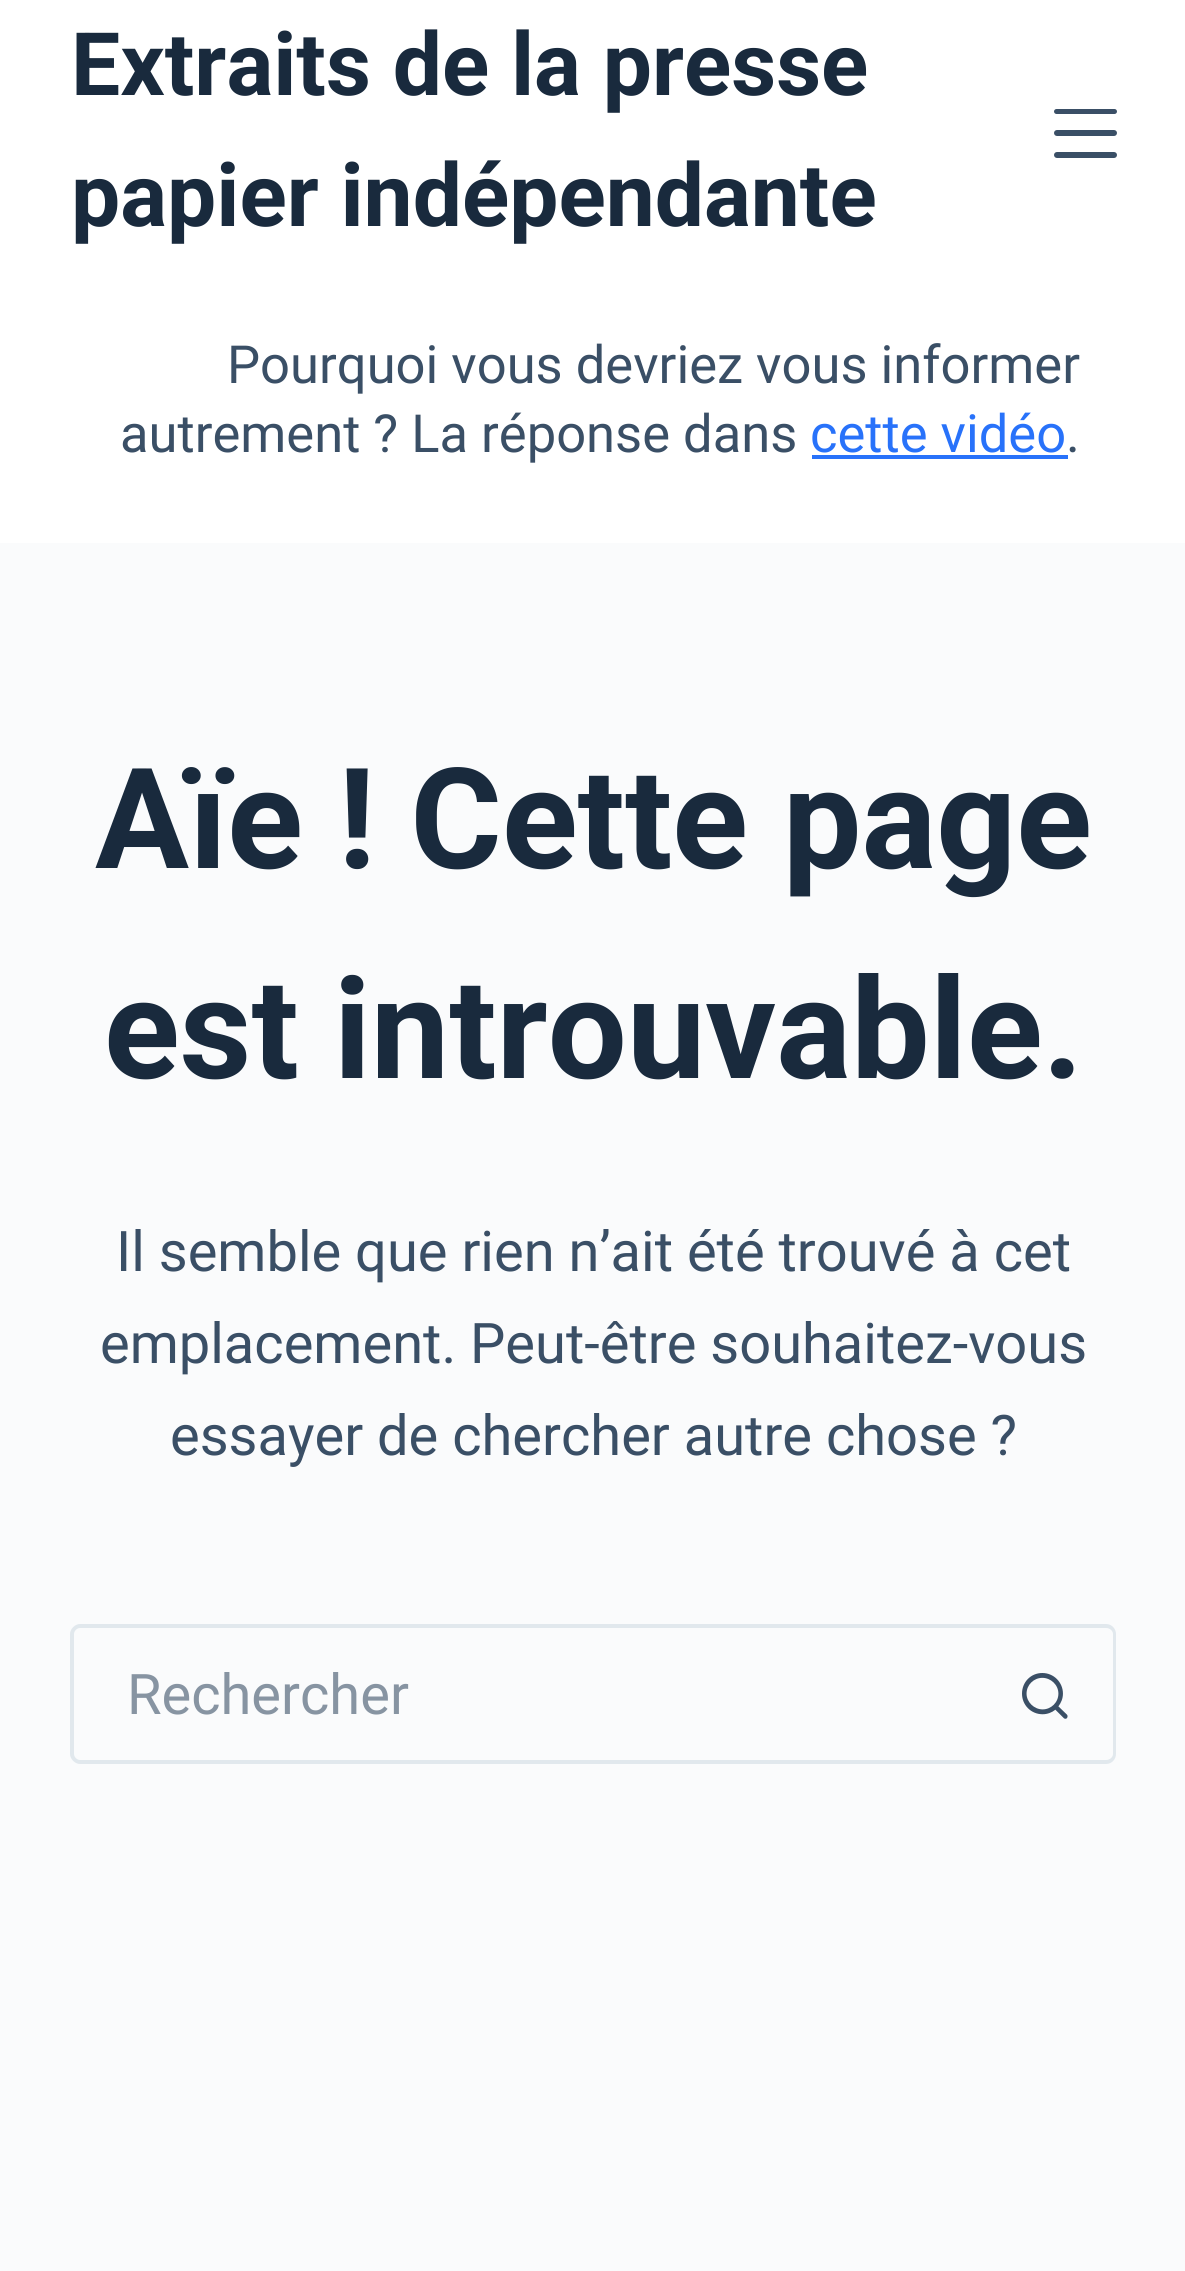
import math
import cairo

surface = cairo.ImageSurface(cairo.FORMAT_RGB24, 1185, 2271)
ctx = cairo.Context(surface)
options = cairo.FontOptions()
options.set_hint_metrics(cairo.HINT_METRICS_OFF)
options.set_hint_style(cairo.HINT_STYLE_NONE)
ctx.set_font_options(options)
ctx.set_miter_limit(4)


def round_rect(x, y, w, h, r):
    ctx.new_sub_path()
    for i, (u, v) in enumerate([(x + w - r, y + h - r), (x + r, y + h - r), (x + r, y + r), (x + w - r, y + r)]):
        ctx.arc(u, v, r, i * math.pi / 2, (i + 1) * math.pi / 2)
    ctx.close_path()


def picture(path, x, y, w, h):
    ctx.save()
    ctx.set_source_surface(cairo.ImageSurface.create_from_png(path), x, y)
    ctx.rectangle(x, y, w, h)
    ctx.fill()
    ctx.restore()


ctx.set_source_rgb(0.98, 0.984, 0.988)
ctx.paint()
ctx.set_source_rgb(1, 1, 1)
ctx.rectangle(0, 0, 1185, 543)
ctx.fill()
ctx.select_font_face("Roboto", cairo.FONT_SLANT_NORMAL, cairo.FONT_WEIGHT_BOLD)
ctx.set_font_size(87.5)
ctx.set_source_rgb(0.098, 0.165, 0.239)
ctx.move_to(71, 95)
ctx.show_text("Extraits de la presse")
ctx.move_to(71, 226)
ctx.show_text("papier indépendante")
ctx.set_source_rgb(0.227, 0.31, 0.4)
round_rect(1054, 109, 63, 5, 2.5)
ctx.fill()
round_rect(1054, 130, 63, 6, 3)
ctx.fill()
round_rect(1054, 152, 63, 6, 3)
ctx.fill()
ctx.select_font_face("Roboto")
ctx.set_font_size(52.5)
ctx.move_to(227, 383)
ctx.show_text("Pourquoi vous devriez vous informer")
ctx.move_to(120, 452)
ctx.show_text("autrement ? La réponse dans")
ctx.set_source_rgb(0.157, 0.447, 0.98)
ctx.move_to(810, 452)
ctx.show_text("cette vidéo")
ctx.rectangle(812, 455, 256, 4)
ctx.fill()
ctx.set_source_rgb(0.227, 0.31, 0.4)
ctx.move_to(1066, 452)
ctx.show_text(".")
ctx.select_font_face("Roboto", cairo.FONT_SLANT_NORMAL, cairo.FONT_WEIGHT_BOLD)
ctx.set_font_size(140)
ctx.set_source_rgb(0.098, 0.165, 0.239)
ctx.move_to(95, 868)
ctx.show_text("Aïe ! Cette page")
ctx.move_to(104, 1078)
ctx.show_text("est introuvable.")
ctx.select_font_face("Roboto")
ctx.set_font_size(56)
ctx.set_source_rgb(0.227, 0.31, 0.4)
ctx.move_to(116, 1271)
ctx.show_text("Il semble que rien n’ait été trouvé à cet")
ctx.move_to(100, 1363)
ctx.show_text("emplacement. Peut-être souhaitez-vous")
ctx.move_to(170, 1455)
ctx.show_text("essayer de chercher autre chose ?")
ctx.set_source_rgb(0.882, 0.91, 0.929)
ctx.set_fill_rule(cairo.FILL_RULE_EVEN_ODD)
ctx.new_path()
ctx.move_to(80, 1624)
ctx.line_to(976, 1624)
ctx.line_to(976, 1764)
ctx.line_to(80, 1764)
ctx.curve_to(75, 1764, 70, 1759, 70, 1754)
ctx.line_to(70, 1634)
ctx.curve_to(70, 1629, 75, 1624, 80, 1624)
ctx.close_path()
ctx.move_to(80, 1628)
ctx.line_to(976, 1628)
ctx.line_to(976, 1760)
ctx.line_to(80, 1760)
ctx.curve_to(77, 1760, 74, 1757, 74, 1754)
ctx.line_to(74, 1634)
ctx.curve_to(74, 1631, 77, 1628, 80, 1628)
ctx.close_path()
ctx.fill()
ctx.set_source_rgb(0.529, 0.58, 0.635)
ctx.move_to(127, 1714)
ctx.show_text("Rechercher")
ctx.set_source_rgb(0.882, 0.91, 0.929)
ctx.new_path()
ctx.move_to(976, 1624)
ctx.line_to(1106, 1624)
ctx.curve_to(1112, 1624, 1116, 1629, 1116, 1634)
ctx.line_to(1116, 1754)
ctx.curve_to(1116, 1759, 1112, 1764, 1106, 1764)
ctx.line_to(976, 1764)
ctx.close_path()
ctx.move_to(976, 1628)
ctx.line_to(1106, 1628)
ctx.curve_to(1110, 1628, 1113, 1631, 1113, 1634)
ctx.line_to(1113, 1754)
ctx.curve_to(1113, 1757, 1110, 1760, 1106, 1760)
ctx.line_to(976, 1760)
ctx.close_path()
ctx.fill()
picture("img1.png", 1022, 1673, 46, 46)
surface.write_to_png("page.png")
